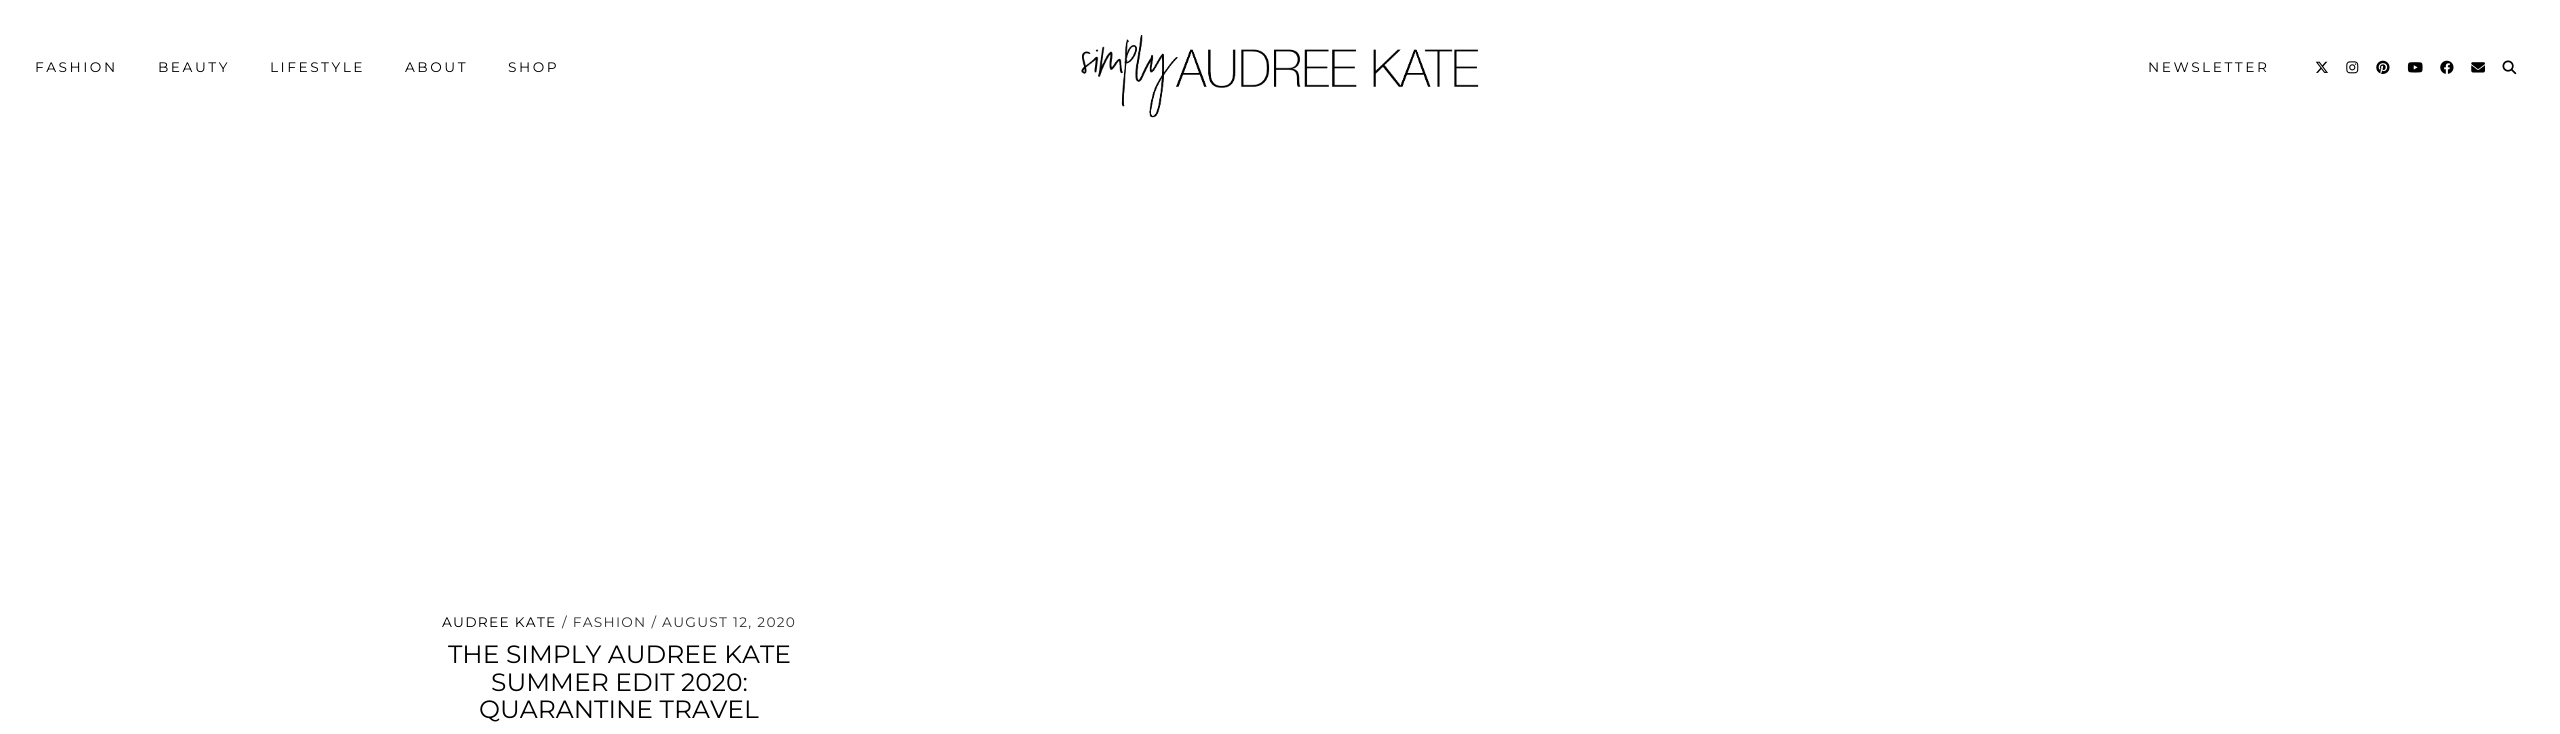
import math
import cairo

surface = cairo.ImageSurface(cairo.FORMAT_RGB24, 2560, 734)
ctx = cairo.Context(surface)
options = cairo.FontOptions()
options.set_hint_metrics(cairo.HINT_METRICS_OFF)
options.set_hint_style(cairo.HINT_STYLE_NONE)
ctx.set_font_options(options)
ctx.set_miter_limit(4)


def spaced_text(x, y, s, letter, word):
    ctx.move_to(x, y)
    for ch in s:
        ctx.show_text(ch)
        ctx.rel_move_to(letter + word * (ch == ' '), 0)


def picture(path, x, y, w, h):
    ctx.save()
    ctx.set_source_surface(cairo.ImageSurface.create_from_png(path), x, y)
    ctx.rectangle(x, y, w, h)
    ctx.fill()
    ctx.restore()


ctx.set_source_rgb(1, 1, 1)
ctx.paint()
ctx.select_font_face("Montserrat Thin")
ctx.set_font_size(13.75)
ctx.set_source_rgb(0, 0, 0)
spaced_text(35, 72, "FASHION", 2.5, 0)
spaced_text(158, 72, "BEAUTY", 2.5, 0)
spaced_text(270, 72, "LIFESTYLE", 2.5, 0)
spaced_text(405, 72, "ABOUT", 2.5, 0)
spaced_text(508, 72, "SHOP", 2.5, 0)
picture("img1.png", 1081, 35, 398, 83)
spaced_text(2148, 72, "NEWSLETTER", 2.5, 0)
picture("img2.png", 2315, 61, 13, 12)
picture("img3.png", 2346, 61, 13, 13)
picture("img4.png", 2376, 60, 14, 14)
picture("img5.png", 2407, 62, 16, 11)
picture("img6.png", 2440, 60, 14, 14)
picture("img7.png", 2471, 62, 14, 11)
picture("img8.png", 2502, 60, 15, 15)
spaced_text(442, 627, "AUDREE KATE", 1.25, 0)
ctx.set_source_rgb(0.2, 0.2, 0.2)
spaced_text(562, 627, "/ FASHION / AUGUST 12, 2020", 1.25, 0)
ctx.set_font_size(25)
ctx.set_source_rgb(0, 0, 0)
ctx.move_to(448, 663)
ctx.show_text("THE SIMPLY AUDREE KATE")
ctx.move_to(491, 691)
ctx.show_text("SUMMER EDIT 2020:")
ctx.move_to(479, 718)
ctx.show_text("QUARANTINE TRAVEL")
surface.write_to_png("page.png")
